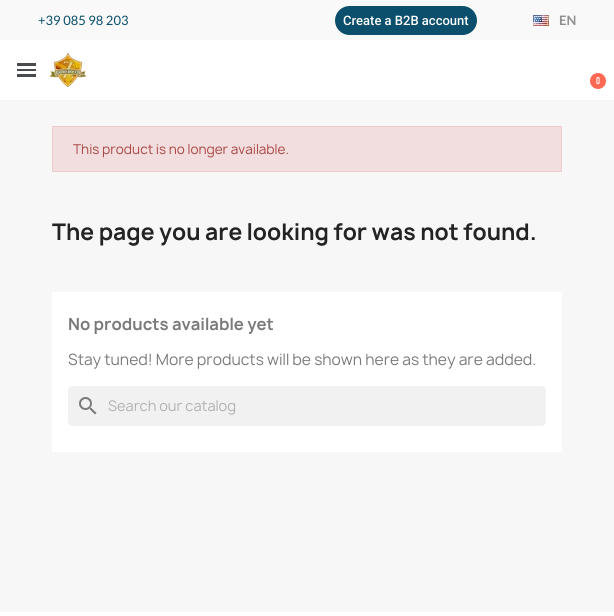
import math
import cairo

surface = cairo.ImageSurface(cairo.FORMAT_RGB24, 614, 616)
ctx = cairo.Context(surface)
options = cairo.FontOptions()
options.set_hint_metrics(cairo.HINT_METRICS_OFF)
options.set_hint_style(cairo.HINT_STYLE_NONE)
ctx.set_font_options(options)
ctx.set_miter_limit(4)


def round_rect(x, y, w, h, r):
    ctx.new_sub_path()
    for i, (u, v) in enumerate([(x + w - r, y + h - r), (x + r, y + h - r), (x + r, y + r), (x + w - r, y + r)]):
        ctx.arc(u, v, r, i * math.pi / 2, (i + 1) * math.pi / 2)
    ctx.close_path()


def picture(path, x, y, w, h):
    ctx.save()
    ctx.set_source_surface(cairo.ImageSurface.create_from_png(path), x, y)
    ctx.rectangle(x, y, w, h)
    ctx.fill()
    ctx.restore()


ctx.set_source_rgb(1, 1, 1)
ctx.paint()
ctx.set_source_rgb(0.973, 0.973, 0.973)
ctx.rectangle(0, 0, 614, 40)
ctx.fill()
ctx.select_font_face("Lato")
ctx.set_font_size(13)
ctx.set_source_rgb(0.043, 0.31, 0.424)
ctx.move_to(38, 25)
ctx.show_text("+39 085 98 203")
round_rect(335, 6, 142, 29, 14.5)
ctx.fill()
ctx.select_font_face("Roboto Medium")
ctx.set_source_rgb(1, 1, 1)
ctx.move_to(343, 25)
ctx.show_text("Create a B2B account")
picture("img1.png", 533, 15, 16, 11)
ctx.select_font_face("Lato", cairo.FONT_SLANT_NORMAL, cairo.FONT_WEIGHT_BOLD)
ctx.set_source_rgb(0.557, 0.557, 0.557)
ctx.move_to(559, 25)
ctx.show_text("EN")
ctx.set_source_rgb(0.953, 0.953, 0.953)
ctx.rectangle(0, 100, 614, 1)
ctx.fill()
ctx.set_source_rgb(0.286, 0.298, 0.31)
ctx.rectangle(17, 69, 19, 2)
ctx.fill()
ctx.rectangle(17, 63, 19, 3)
ctx.fill()
ctx.rectangle(17, 74, 19, 3)
ctx.fill()
picture("img2.png", 49, 53, 38, 35)
ctx.set_source_rgb(1, 0.408, 0.322)
ctx.arc(598, 81, 8, 0, 2 * math.pi)
ctx.fill()
ctx.select_font_face("Saira ExtraCondensed SemiBold")
ctx.set_font_size(10)
ctx.set_source_rgb(1, 1, 1)
ctx.move_to(596, 84)
ctx.show_text("0")
ctx.set_source_rgb(0.965, 0.965, 0.965)
ctx.rectangle(0, 101, 614, 511)
ctx.fill()
ctx.set_source_rgb(0.949, 0.871, 0.871)
ctx.rectangle(52.5, 126.5, 509, 45)
ctx.fill_preserve()
ctx.set_source_rgb(0.922, 0.8, 0.8)
ctx.set_line_width(1)
ctx.stroke()
ctx.select_font_face("Manrope")
ctx.set_font_size(13)
ctx.set_source_rgb(0.663, 0.267, 0.259)
ctx.move_to(73, 154)
ctx.show_text("This product is no longer available.")
ctx.select_font_face("Manrope", cairo.FONT_SLANT_NORMAL, cairo.FONT_WEIGHT_BOLD)
ctx.set_font_size(22)
ctx.set_source_rgb(0.137, 0.137, 0.137)
ctx.move_to(52, 240)
ctx.show_text("The page you are looking for was not found.")
ctx.set_source_rgb(1, 1, 1)
ctx.rectangle(52, 292, 510, 160)
ctx.fill()
ctx.set_font_size(16)
ctx.set_source_rgb(0.478, 0.478, 0.478)
ctx.move_to(68, 330)
ctx.show_text("No products available yet")
ctx.select_font_face("Manrope")
ctx.set_font_size(15)
ctx.move_to(68, 365)
ctx.show_text("Stay tuned! More products will be shown here as they are added.")
ctx.set_source_rgb(0.945, 0.945, 0.945)
round_rect(68, 386, 478, 40, 5)
ctx.fill()
picture("img3.png", 79, 397, 18, 18)
ctx.set_font_size(14)
ctx.set_source_rgb(0.694, 0.694, 0.694)
ctx.move_to(108, 411)
ctx.show_text("Search our catalog")
surface.write_to_png("page.png")
